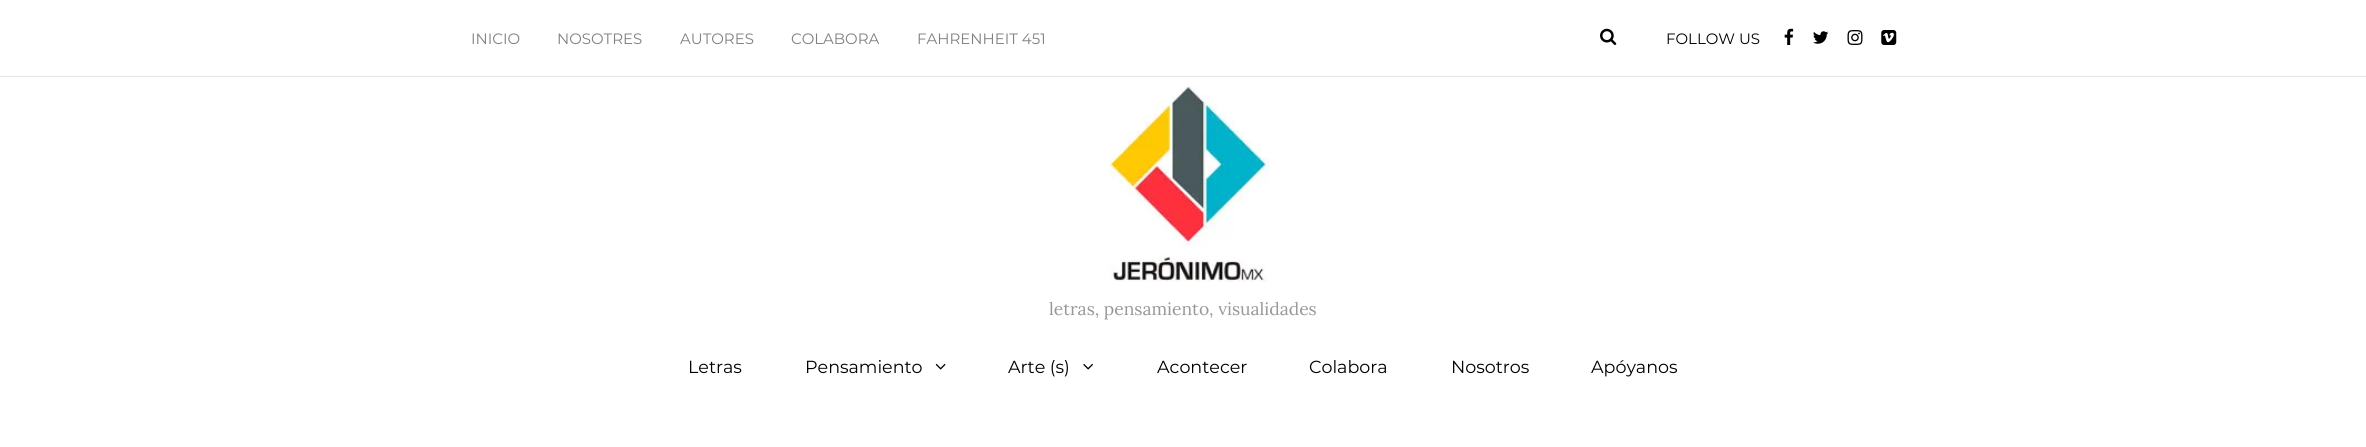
import math
import cairo

surface = cairo.ImageSurface(cairo.FORMAT_RGB24, 2366, 447)
ctx = cairo.Context(surface)
options = cairo.FontOptions()
options.set_hint_metrics(cairo.HINT_METRICS_OFF)
options.set_hint_style(cairo.HINT_STYLE_NONE)
ctx.set_font_options(options)
ctx.set_miter_limit(4)


def picture(path, x, y, w, h):
    ctx.save()
    ctx.set_source_surface(cairo.ImageSurface.create_from_png(path), x, y)
    ctx.rectangle(x, y, w, h)
    ctx.fill()
    ctx.restore()


ctx.set_source_rgb(1, 1, 1)
ctx.paint()
ctx.set_source_rgb(0.902, 0.902, 0.902)
ctx.rectangle(0, 76, 2366, 1)
ctx.fill()
ctx.select_font_face("Montserrat Thin")
ctx.set_font_size(15)
ctx.set_source_rgb(0.502, 0.502, 0.502)
ctx.move_to(471, 44)
ctx.show_text("INICIO")
ctx.move_to(557, 44)
ctx.show_text("NOSOTRES")
ctx.move_to(680, 44)
ctx.show_text("AUTORES")
ctx.move_to(791, 44)
ctx.show_text("COLABORA")
ctx.move_to(917, 44)
ctx.show_text("FAHRENHEIT 451")
picture("img1.png", 1600, 28, 17, 17)
ctx.set_source_rgb(0, 0, 0)
ctx.move_to(1666, 44)
ctx.show_text("FOLLOW US")
picture("img2.png", 1784, 28, 10, 17)
picture("img3.png", 1813, 31, 16, 13)
picture("img4.png", 1847, 30, 16, 15)
picture("img5.png", 1881, 30, 16, 15)
picture("img6.png", 1109, 86, 161, 196)
ctx.select_font_face("Lora")
ctx.set_font_size(17.5)
ctx.set_source_rgb(0.596, 0.596, 0.596)
ctx.move_to(1049, 315)
ctx.show_text("letras, pensamiento, visualidades")
ctx.select_font_face("Montserrat Thin")
ctx.set_source_rgb(0, 0, 0)
ctx.move_to(688, 373)
ctx.show_text("Letras")
ctx.move_to(805, 373)
ctx.show_text("Pensamiento")
picture("img7.png", 935, 363, 11, 7)
ctx.move_to(1008, 373)
ctx.show_text("Arte (s)")
picture("img8.png", 1083, 363, 10, 7)
ctx.move_to(1157, 373)
ctx.show_text("Acontecer")
ctx.move_to(1309, 373)
ctx.show_text("Colabora")
ctx.move_to(1451, 373)
ctx.show_text("Nosotros")
ctx.move_to(1591, 373)
ctx.show_text("Apóyanos")
surface.write_to_png("page.png")
